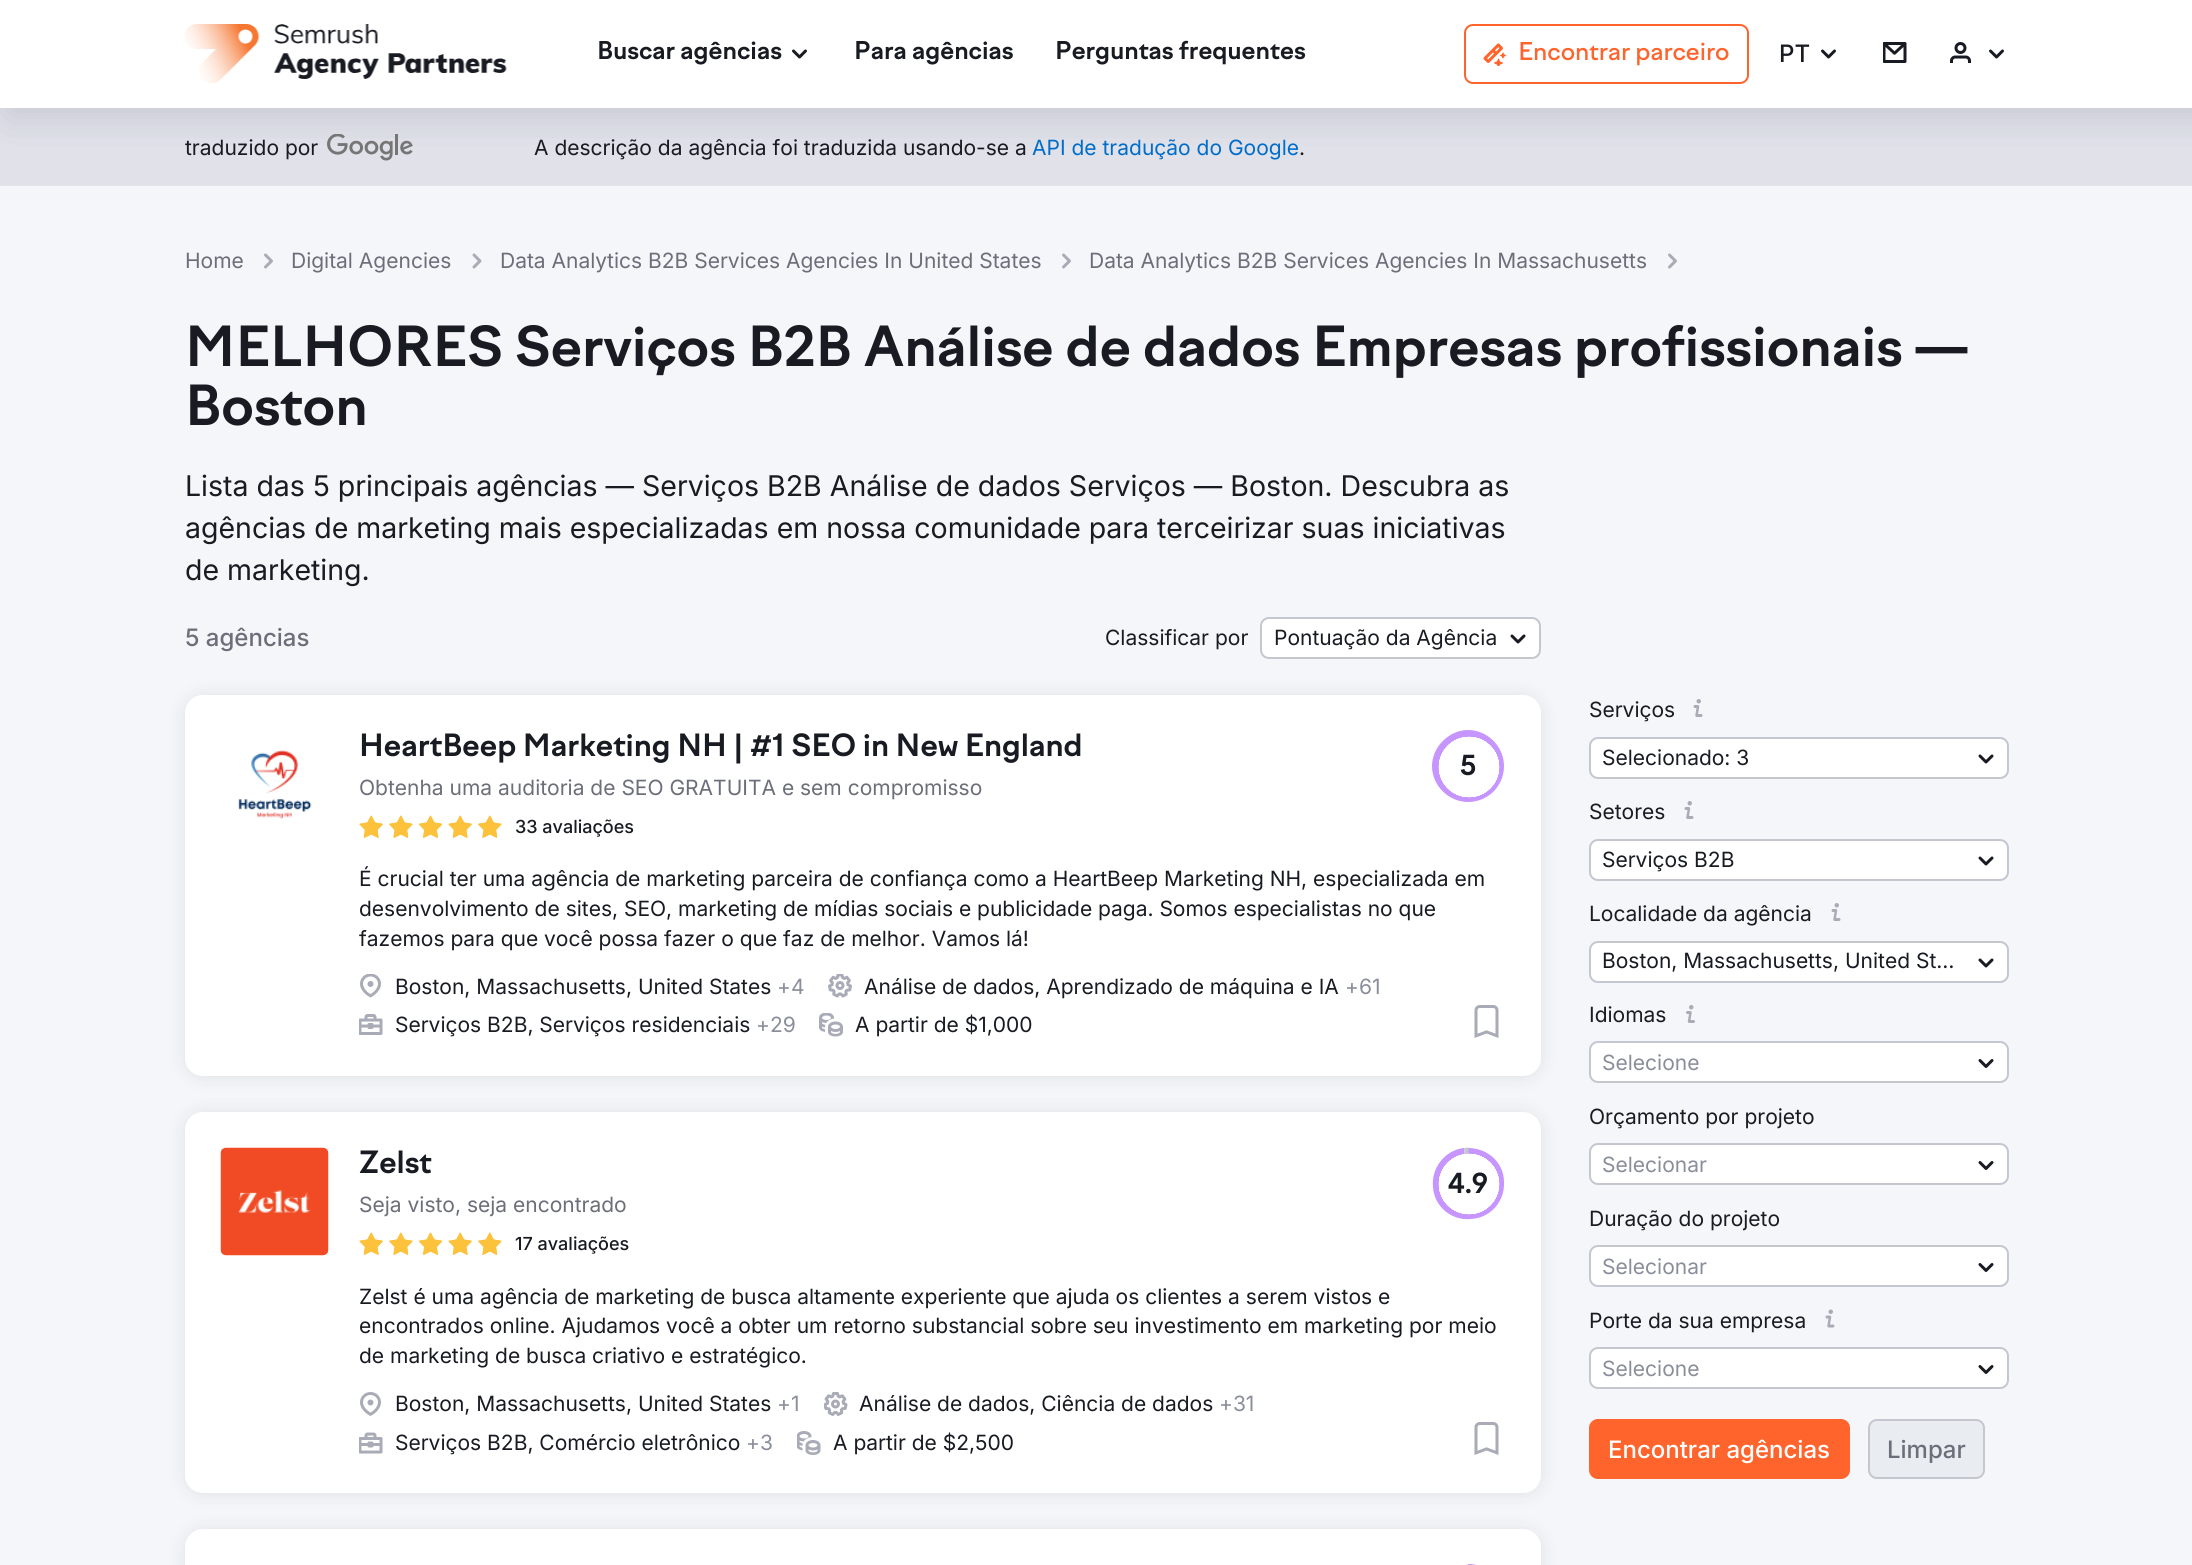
import math
import cairo

surface = cairo.ImageSurface(cairo.FORMAT_RGB24, 2192, 1565)
ctx = cairo.Context(surface)
options = cairo.FontOptions()
options.set_hint_metrics(cairo.HINT_METRICS_OFF)
options.set_hint_style(cairo.HINT_STYLE_NONE)
ctx.set_font_options(options)
ctx.set_miter_limit(4)


def round_rect(x, y, w, h, r):
    ctx.new_sub_path()
    for i, (u, v) in enumerate([(x + w - r, y + h - r), (x + r, y + h - r), (x + r, y + r), (x + w - r, y + r)]):
        ctx.arc(u, v, r, i * math.pi / 2, (i + 1) * math.pi / 2)
    ctx.close_path()


def shadow(x, y, w, h, r, blur, alpha):
    ctx.push_group_with_content(cairo.CONTENT_ALPHA)
    ctx.set_operator(cairo.OPERATOR_SOURCE)
    for i in range(15, -16, -2):
        e = blur * i / 6
        if min(w, h) + 2 * e > 0:
            ctx.set_source_rgba(0, 0, 0, alpha * math.erfc((i - 1) / 8.5) / 2)
            round_rect(x - e, y - e, w + 2 * e, h + 2 * e, max(0, min(r + e + blur * .6, min(w, h) / 2 + e)))
            ctx.fill()
    ctx.mask(ctx.pop_group())


def picture(path, x, y, w, h):
    ctx.save()
    ctx.set_source_surface(cairo.ImageSurface.create_from_png(path), x, y)
    ctx.rectangle(x, y, w, h)
    ctx.fill()
    ctx.restore()


ctx.set_source_rgb(1, 1, 1)
ctx.paint()
ctx.set_source_rgb(0.878, 0.882, 0.914)
ctx.rectangle(0, 108, 2192, 78)
ctx.fill()
picture("img6.png", 327, 134, 86, 27)
ctx.save()
ctx.rectangle(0, 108, 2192, 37)
ctx.clip()
ctx.set_source_rgb(0.537, 0.553, 0.604)
shadow(8, 8, 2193, 108, 0, 19, 0.3)
ctx.restore()
picture("img1.png", 184, 24, 323, 60)
ctx.select_font_face("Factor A", cairo.FONT_SLANT_NORMAL, cairo.FONT_WEIGHT_BOLD)
ctx.set_font_size(24)
ctx.set_source_rgb(0.098, 0.106, 0.137)
ctx.move_to(597, 59)
ctx.show_text("Buscar agências")
picture("img2.png", 792, 49, 15, 10)
ctx.move_to(854, 59)
ctx.show_text("Para agências")
ctx.move_to(1055, 59)
ctx.show_text("Perguntas frequentes")
round_rect(1465, 25, 283, 58, 8)
ctx.set_source_rgb(1, 0.392, 0.176)
ctx.stroke()
picture("img3.png", 1483, 43, 23, 23)
ctx.select_font_face("Factor A Medium")
ctx.move_to(1518, 60)
ctx.show_text("Encontrar parceiro")
ctx.select_font_face("Inter Medium")
ctx.set_source_rgb(0.098, 0.106, 0.137)
ctx.move_to(1779, 62)
ctx.show_text("PT")
picture("img2.png", 1821, 49, 15, 10)
picture("img4.png", 1883, 42, 24, 21)
picture("img5.png", 1950, 42, 21, 21)
picture("img2.png", 1989, 49, 15, 10)
ctx.select_font_face("Inter")
ctx.set_font_size(21)
ctx.move_to(185, 155)
ctx.show_text("traduzido por")
ctx.move_to(534, 155)
ctx.show_text("A descrição da agência foi traduzida usando-se a")
ctx.set_source_rgb(0, 0.427, 0.792)
ctx.move_to(1032, 155)
ctx.show_text("API de tradução do Google")
ctx.set_source_rgb(0.098, 0.106, 0.137)
ctx.move_to(1299, 155)
ctx.show_text(".")
ctx.set_source_rgb(0.957, 0.961, 0.976)
ctx.rectangle(0, 186, 2192, 1379)
ctx.fill()
ctx.set_source_rgb(0.424, 0.431, 0.475)
ctx.move_to(185, 268)
ctx.show_text("Home")
picture("img7.png", 264, 253, 9, 16)
ctx.move_to(291, 268)
ctx.show_text("Digital Agencies")
picture("img8.png", 472, 253, 10, 16)
ctx.move_to(500, 268)
ctx.show_text("Data Analytics B2B Services Agencies In United States")
picture("img7.png", 1062, 253, 9, 16)
ctx.move_to(1089, 268)
ctx.show_text("Data Analytics B2B Services Agencies In Massachusetts")
picture("img7.png", 1668, 253, 9, 16)
ctx.select_font_face("Factor A", cairo.FONT_SLANT_NORMAL, cairo.FONT_WEIGHT_BOLD)
ctx.set_font_size(54)
ctx.set_source_rgb(0.098, 0.106, 0.137)
ctx.move_to(185, 366)
ctx.show_text("MELHORES Serviços B2B Análise de dados Empresas profissionais —")
ctx.move_to(185, 425)
ctx.show_text("Boston")
ctx.select_font_face("Inter")
ctx.set_font_size(28.5)
ctx.move_to(185, 496)
ctx.show_text("Lista das 5 principais agências — Serviços B2B Análise de dados Serviços — Boston. Descubra as")
ctx.move_to(185, 538)
ctx.show_text("agências de marketing mais especializadas em nossa comunidade para terceirizar suas iniciativas")
ctx.move_to(185, 580)
ctx.show_text("de marketing.")
ctx.select_font_face("Inter Medium")
ctx.set_font_size(24)
ctx.set_source_rgb(0.424, 0.431, 0.475)
ctx.move_to(185, 646)
ctx.show_text("5 agências")
ctx.select_font_face("Inter")
ctx.set_font_size(21)
ctx.set_source_rgb(0.098, 0.106, 0.137)
ctx.move_to(1105, 645)
ctx.show_text("Classificar por")
ctx.set_source_rgb(1, 1, 1)
round_rect(1261, 618, 279, 40, 8)
ctx.fill_preserve()
ctx.set_source_rgb(0.769, 0.78, 0.812)
ctx.stroke()
ctx.set_source_rgb(0.098, 0.106, 0.137)
ctx.move_to(1274, 645)
ctx.show_text("Pontuação da Agência")
picture("img9.png", 1510, 634, 16, 10)
ctx.set_source_rgb(0.098, 0.106, 0.137)
shadow(185, 696, 1356, 381, 18, 9, 0.1)
ctx.set_source_rgb(1, 1, 1)
round_rect(185, 695, 1356, 381, 18)
ctx.fill()
picture("img10.png", 238, 750, 74, 69)
ctx.select_font_face("Factor A", cairo.FONT_SLANT_NORMAL, cairo.FONT_WEIGHT_BOLD)
ctx.set_font_size(30)
ctx.set_source_rgb(0.098, 0.106, 0.137)
ctx.move_to(359, 756)
ctx.show_text("HeartBeep Marketing NH | #1 SEO in New England")
ctx.select_font_face("Inter")
ctx.set_font_size(21)
ctx.set_source_rgb(0.424, 0.431, 0.475)
ctx.move_to(359, 795)
ctx.show_text("Obtenha uma auditoria de SEO GRATUITA e sem compromisso")
picture("img11.png", 359, 815, 143, 23)
ctx.select_font_face("Inter Medium")
ctx.set_font_size(18)
ctx.set_source_rgb(0.098, 0.106, 0.137)
ctx.move_to(515, 833)
ctx.show_text("33 avaliações")
ctx.set_source_rgb(0.776, 0.584, 1)
ctx.new_path()
ctx.move_to(1468, 766)
ctx.line_to(1468, 730)
ctx.curve_to(1488, 730, 1504, 747, 1504, 766)
ctx.curve_to(1504, 786, 1488, 802, 1468, 802)
ctx.curve_to(1449, 802, 1432, 786, 1432, 766)
ctx.curve_to(1432, 747, 1449, 730, 1468, 730)
ctx.close_path()
ctx.fill()
gradient = cairo.RadialGradient(1469, 767, 0, 1469, 767, 36)
gradient.add_color_stop_rgba(0.84, 1, 1, 1, 1)
gradient.add_color_stop_rgba(0.85, 1, 1, 1, 0)
gradient.add_color_stop_rgba(1, 0, 0, 0, 0)
ctx.set_source(gradient)
ctx.rectangle(1438, 736, 62, 62)
ctx.fill()
ctx.select_font_face("Factor A", cairo.FONT_SLANT_NORMAL, cairo.FONT_WEIGHT_BOLD)
ctx.set_font_size(27)
ctx.set_source_rgb(0.098, 0.106, 0.137)
ctx.move_to(1460, 775)
ctx.show_text("5")
ctx.select_font_face("Inter")
ctx.set_font_size(21)
ctx.move_to(359, 886)
ctx.show_text("É crucial ter uma agência de marketing parceira de confiança como a HeartBeep Marketing NH, especializada em")
ctx.move_to(359, 916)
ctx.show_text("desenvolvimento de sites, SEO, marketing de mídias sociais e publicidade paga. Somos especialistas no que")
ctx.move_to(359, 946)
ctx.show_text("fazemos para que você possa fazer o que faz de melhor. Vamos lá!")
picture("img12.png", 360, 974, 21, 24)
ctx.move_to(395, 994)
ctx.show_text("Boston, Massachusetts, United States")
ctx.set_source_rgb(0.541, 0.557, 0.608)
ctx.move_to(777, 994)
ctx.show_text("+4")
picture("img13.png", 828, 974, 24, 24)
ctx.set_source_rgb(0.098, 0.106, 0.137)
ctx.move_to(864, 994)
ctx.show_text("Análise de dados, Aprendizado de máquina e IA")
ctx.set_source_rgb(0.541, 0.557, 0.608)
ctx.move_to(1345, 994)
ctx.show_text("+61")
picture("img14.png", 359, 1014, 24, 21)
ctx.set_source_rgb(0.098, 0.106, 0.137)
ctx.move_to(395, 1032)
ctx.show_text("Serviços B2B, Serviços residenciais")
ctx.set_source_rgb(0.541, 0.557, 0.608)
ctx.move_to(756, 1032)
ctx.show_text("+29")
picture("img15.png", 819, 1013, 24, 24)
ctx.set_source_rgb(0.098, 0.106, 0.137)
ctx.move_to(855, 1032)
ctx.show_text("A partir de $1,000")
picture("img16.png", 1474, 1005, 25, 33)
ctx.set_source_rgb(0.098, 0.106, 0.137)
shadow(185, 1113, 1356, 381, 18, 9, 0.1)
ctx.set_source_rgb(1, 1, 1)
round_rect(185, 1112, 1356, 381, 18)
ctx.fill()
picture("img17.png", 220, 1147, 109, 109)
ctx.select_font_face("Factor A", cairo.FONT_SLANT_NORMAL, cairo.FONT_WEIGHT_BOLD)
ctx.set_font_size(30)
ctx.set_source_rgb(0.098, 0.106, 0.137)
ctx.move_to(359, 1173)
ctx.show_text("Zelst")
ctx.select_font_face("Inter")
ctx.set_font_size(21)
ctx.set_source_rgb(0.424, 0.431, 0.475)
ctx.move_to(359, 1212)
ctx.show_text("Seja visto, seja encontrado")
picture("img11.png", 359, 1232, 143, 23)
ctx.select_font_face("Inter Medium")
ctx.set_font_size(18)
ctx.set_source_rgb(0.098, 0.106, 0.137)
ctx.move_to(515, 1250)
ctx.show_text("17 avaliações")
ctx.set_source_rgb(0.776, 0.584, 1)
ctx.new_path()
ctx.move_to(1468, 1184)
ctx.line_to(1468, 1148)
ctx.curve_to(1488, 1148, 1504, 1163, 1504, 1182)
ctx.curve_to(1505, 1202, 1490, 1218, 1471, 1219)
ctx.curve_to(1451, 1221, 1434, 1206, 1433, 1187)
ctx.curve_to(1431, 1168, 1445, 1150, 1464, 1148)
ctx.close_path()
ctx.fill()
ctx.set_source_rgb(0.769, 0.78, 0.812)
ctx.new_path()
ctx.move_to(1468.5, 1183.5)
ctx.line_to(1464, 1148)
ctx.line_to(1468.5, 1147.5)
ctx.close_path()
ctx.fill()
gradient = cairo.RadialGradient(1469, 1184, 0, 1469, 1184, 36)
gradient.add_color_stop_rgba(0.84, 1, 1, 1, 1)
gradient.add_color_stop_rgba(0.85, 1, 1, 1, 0)
gradient.add_color_stop_rgba(1, 0, 0, 0, 0)
ctx.set_source(gradient)
ctx.rectangle(1438, 1153, 62, 62)
ctx.fill()
ctx.select_font_face("Factor A", cairo.FONT_SLANT_NORMAL, cairo.FONT_WEIGHT_BOLD)
ctx.set_font_size(27)
ctx.set_source_rgb(0.098, 0.106, 0.137)
ctx.move_to(1448, 1193)
ctx.show_text("4.9")
ctx.select_font_face("Inter")
ctx.set_font_size(21)
ctx.move_to(359, 1304)
ctx.show_text("Zelst é uma agência de marketing de busca altamente experiente que ajuda os clientes a serem vistos e")
ctx.move_to(359, 1333)
ctx.show_text("encontrados online. Ajudamos você a obter um retorno substancial sobre seu investimento em marketing por meio")
ctx.move_to(359, 1363)
ctx.show_text("de marketing de busca criativo e estratégico.")
picture("img18.png", 360, 1392, 21, 24)
ctx.move_to(395, 1411)
ctx.show_text("Boston, Massachusetts, United States")
ctx.set_source_rgb(0.541, 0.557, 0.608)
ctx.move_to(777, 1411)
ctx.show_text("+1")
picture("img19.png", 824, 1392, 24, 24)
ctx.set_source_rgb(0.098, 0.106, 0.137)
ctx.move_to(859, 1411)
ctx.show_text("Análise de dados, Ciência de dados")
ctx.set_source_rgb(0.541, 0.557, 0.608)
ctx.move_to(1219, 1411)
ctx.show_text("+31")
picture("img20.png", 359, 1432, 24, 22)
ctx.set_source_rgb(0.098, 0.106, 0.137)
ctx.move_to(395, 1450)
ctx.show_text("Serviços B2B, Comércio eletrônico")
ctx.set_source_rgb(0.541, 0.557, 0.608)
ctx.move_to(746, 1450)
ctx.show_text("+3")
picture("img21.png", 797, 1431, 24, 24)
ctx.set_source_rgb(0.098, 0.106, 0.137)
ctx.move_to(833, 1450)
ctx.show_text("A partir de $2,500")
picture("img16.png", 1474, 1422, 25, 33)
ctx.set_source_rgb(0.098, 0.106, 0.137)
shadow(185, 1530, 1356, 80, 18, 9, 0.1)
ctx.set_source_rgb(1, 1, 1)
round_rect(185, 1529, 1356, 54, 18)
ctx.fill()
ctx.set_source_rgb(0.776, 0.584, 1)
ctx.new_path()
ctx.move_to(1468, 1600)
ctx.line_to(1468, 1564)
ctx.curve_to(1488, 1564, 1504, 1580, 1504, 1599)
ctx.curve_to(1505, 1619, 1490, 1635, 1471, 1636)
ctx.curve_to(1451, 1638, 1434, 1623, 1433, 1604)
ctx.curve_to(1431, 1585, 1445, 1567, 1464, 1565)
ctx.close_path()
ctx.fill()
ctx.set_source_rgb(0.769, 0.78, 0.812)
ctx.new_path()
ctx.move_to(1468.5, 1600.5)
ctx.line_to(1464, 1565)
ctx.line_to(1468.5, 1564.5)
ctx.close_path()
ctx.fill()
ctx.set_source_rgb(0.098, 0.106, 0.137)
ctx.move_to(1589, 717)
ctx.show_text("Serviços")
picture("img22.png", 1693, 699, 10, 18)
ctx.set_source_rgb(1, 1, 1)
round_rect(1590, 738, 418, 40, 8)
ctx.fill_preserve()
ctx.set_source_rgb(0.769, 0.78, 0.812)
ctx.stroke()
ctx.set_source_rgb(0.098, 0.106, 0.137)
ctx.move_to(1602, 765)
ctx.show_text("Selecionado: 3")
picture("img9.png", 1978, 754, 16, 10)
ctx.move_to(1589, 819)
ctx.show_text("Setores")
picture("img22.png", 1684, 801, 10, 18)
ctx.set_source_rgb(1, 1, 1)
round_rect(1590, 840, 418, 40, 8)
ctx.fill_preserve()
ctx.set_source_rgb(0.769, 0.78, 0.812)
ctx.stroke()
ctx.set_source_rgb(0.098, 0.106, 0.137)
ctx.move_to(1602, 867)
ctx.show_text("Serviços B2B")
picture("img9.png", 1978, 856, 16, 10)
ctx.move_to(1589, 921)
ctx.show_text("Localidade da agência")
picture("img22.png", 1831, 903, 10, 18)
ctx.set_source_rgb(1, 1, 1)
round_rect(1590, 942, 418, 40, 8)
ctx.fill_preserve()
ctx.set_source_rgb(0.769, 0.78, 0.812)
ctx.stroke()
ctx.set_source_rgb(0.098, 0.106, 0.137)
ctx.move_to(1602, 968)
ctx.show_text("Boston, Massachusetts, United St…")
picture("img9.png", 1978, 958, 16, 10)
ctx.move_to(1589, 1022)
ctx.show_text("Idiomas")
picture("img23.png", 1686, 1005, 9, 18)
ctx.set_source_rgb(1, 1, 1)
round_rect(1590, 1042, 418, 40, 8)
ctx.fill_preserve()
ctx.set_source_rgb(0.769, 0.78, 0.812)
ctx.stroke()
ctx.set_source_rgb(0.541, 0.557, 0.608)
ctx.move_to(1602, 1070)
ctx.show_text("Selecione")
picture("img24.png", 1978, 1059, 16, 9)
ctx.set_source_rgb(0.098, 0.106, 0.137)
ctx.move_to(1589, 1124)
ctx.show_text("Orçamento por projeto")
ctx.set_source_rgb(1, 1, 1)
round_rect(1590, 1144, 418, 40, 8)
ctx.fill_preserve()
ctx.set_source_rgb(0.769, 0.78, 0.812)
ctx.stroke()
ctx.set_source_rgb(0.541, 0.557, 0.608)
ctx.move_to(1602, 1172)
ctx.show_text("Selecionar")
picture("img24.png", 1978, 1161, 16, 9)
ctx.set_source_rgb(0.098, 0.106, 0.137)
ctx.move_to(1589, 1226)
ctx.show_text("Duração do projeto")
ctx.set_source_rgb(1, 1, 1)
round_rect(1590, 1246, 418, 40, 8)
ctx.fill_preserve()
ctx.set_source_rgb(0.769, 0.78, 0.812)
ctx.stroke()
ctx.set_source_rgb(0.541, 0.557, 0.608)
ctx.move_to(1602, 1274)
ctx.show_text("Selecionar")
picture("img24.png", 1978, 1263, 16, 9)
ctx.set_source_rgb(0.098, 0.106, 0.137)
ctx.move_to(1589, 1328)
ctx.show_text("Porte da sua empresa")
picture("img25.png", 1825, 1309, 10, 19)
ctx.set_source_rgb(1, 1, 1)
round_rect(1590, 1348, 418, 40, 8)
ctx.fill_preserve()
ctx.set_source_rgb(0.769, 0.78, 0.812)
ctx.stroke()
ctx.set_source_rgb(0.541, 0.557, 0.608)
ctx.move_to(1602, 1376)
ctx.show_text("Selecione")
picture("img24.png", 1978, 1365, 16, 9)
ctx.set_source_rgb(1, 0.392, 0.176)
round_rect(1589, 1419, 261, 60, 9)
ctx.fill()
ctx.select_font_face("Inter Medium")
ctx.set_font_size(24)
ctx.set_source_rgb(1, 1, 1)
ctx.move_to(1608, 1458)
ctx.show_text("Encontrar agências")
ctx.set_source_rgb(0.914, 0.922, 0.941)
round_rect(1869, 1420, 115, 58, 8)
ctx.fill_preserve()
ctx.set_source_rgb(0.769, 0.78, 0.812)
ctx.stroke()
ctx.set_source_rgb(0.424, 0.431, 0.475)
ctx.move_to(1887, 1458)
ctx.show_text("Limpar")
surface.write_to_png("page.png")
